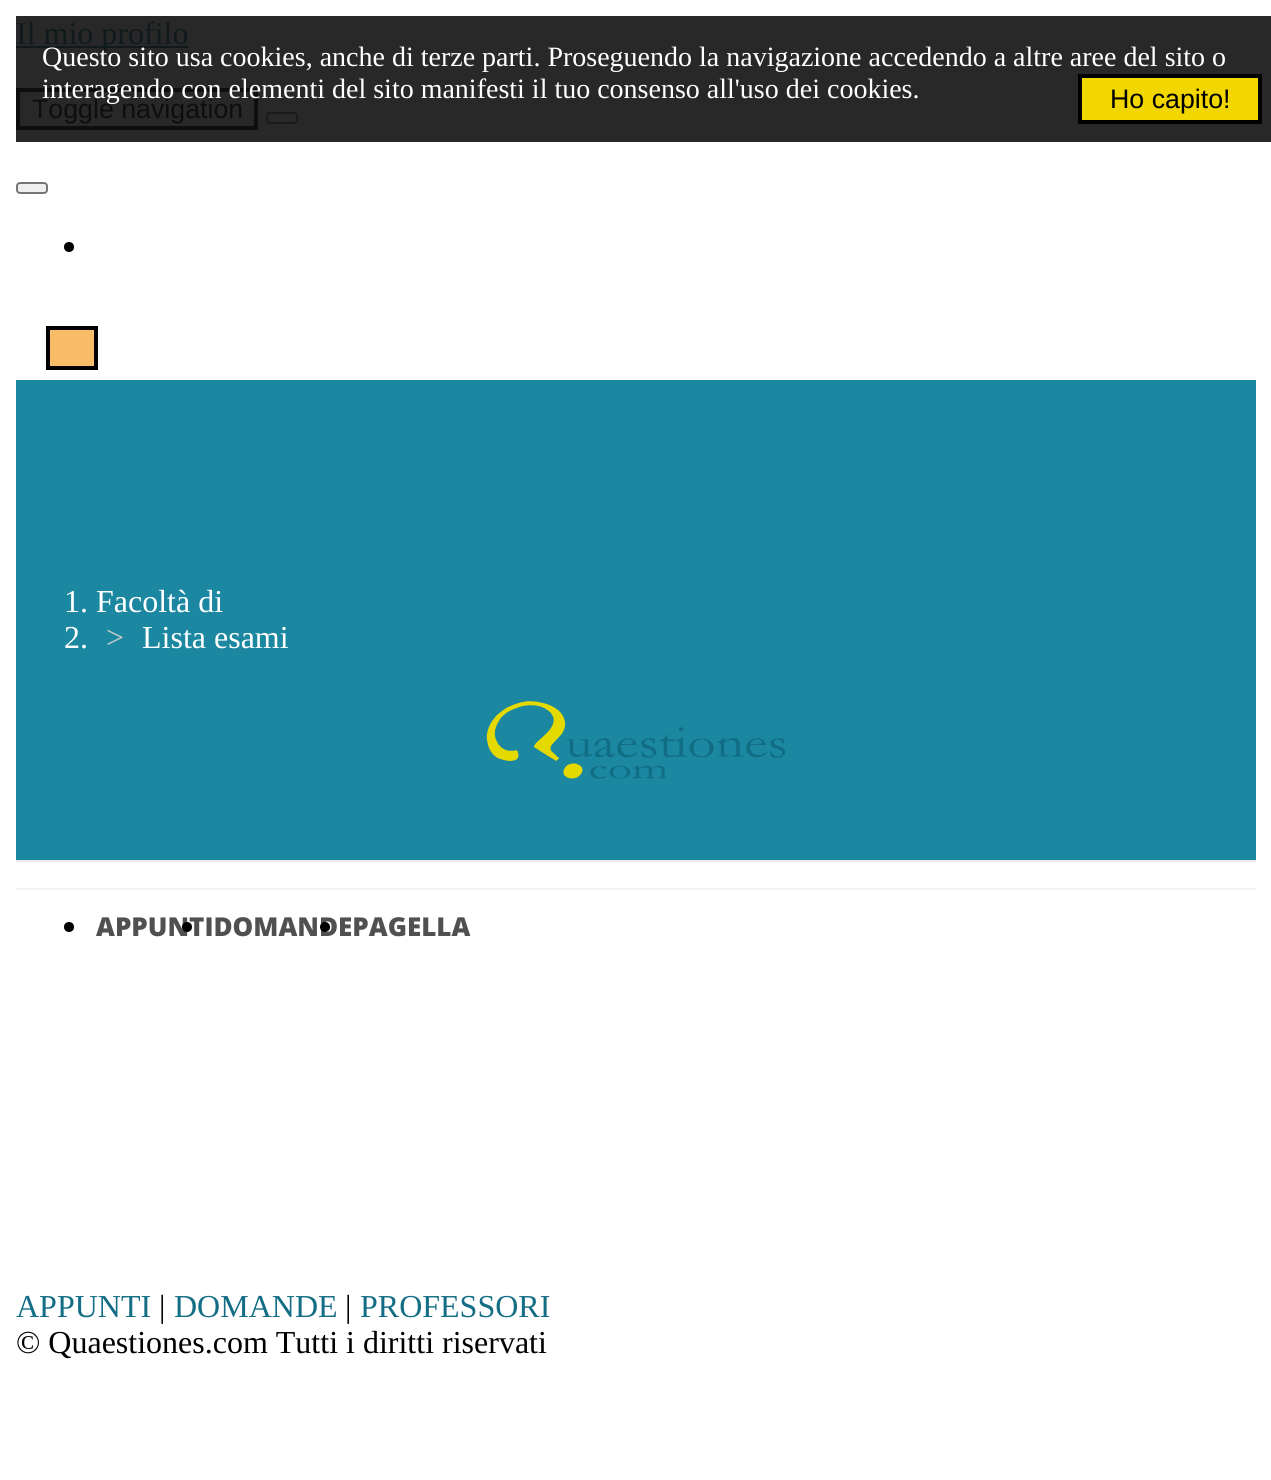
import math
import cairo

surface = cairo.ImageSurface(cairo.FORMAT_RGB24, 1271, 1480)
ctx = cairo.Context(surface)
options = cairo.FontOptions()
options.set_hint_metrics(cairo.HINT_METRICS_OFF)
options.set_hint_style(cairo.HINT_STYLE_NONE)
ctx.set_font_options(options)
ctx.set_miter_limit(4)


def round_rect(x, y, w, h, r):
    ctx.new_sub_path()
    for i, (u, v) in enumerate([(x + w - r, y + h - r), (x + r, y + h - r), (x + r, y + r), (x + w - r, y + r)]):
        ctx.arc(u, v, r, i * math.pi / 2, (i + 1) * math.pi / 2)
    ctx.close_path()


def picture(path, x, y, w, h):
    ctx.save()
    ctx.set_source_surface(cairo.ImageSurface.create_from_png(path), x, y)
    ctx.rectangle(x, y, w, h)
    ctx.fill()
    ctx.restore()


ctx.set_source_rgb(1, 1, 1)
ctx.paint()
ctx.set_source_rgb(0.157, 0.157, 0.157)
ctx.rectangle(16, 16, 1255, 126)
ctx.fill()
ctx.set_source_rgb(0.063, 0.098, 0.11)
ctx.rectangle(16, 46, 172, 2)
ctx.fill()
ctx.select_font_face("Liberation Serif")
ctx.set_font_size(32)
ctx.move_to(16, 44)
ctx.show_text("Il mio profilo")
ctx.rectangle(18, 90, 238, 38)
ctx.set_source_rgb(0.055, 0.055, 0.055)
ctx.set_line_width(4)
ctx.stroke()
ctx.select_font_face("Liberation Sans")
ctx.set_font_size(26.75)
ctx.move_to(32, 118)
ctx.show_text("Toggle navigation")
round_rect(267, 113, 30, 10, 3)
ctx.set_source_rgb(0.102, 0.102, 0.102)
ctx.set_line_width(2)
ctx.stroke()
ctx.set_source_rgb(0.11, 0.529, 0.627)
ctx.rectangle(16, 380, 1240, 480)
ctx.fill()
picture("img1.png", 486, 701, 300, 78)
ctx.set_source_rgb(0.937, 0.937, 0.937)
round_rect(17, 183, 30, 10, 3)
ctx.fill_preserve()
ctx.set_source_rgb(0.463, 0.463, 0.463)
ctx.stroke()
ctx.set_source_rgb(0, 0, 0)
ctx.arc(69, 247, 5, 0, 2 * math.pi)
ctx.fill()
ctx.set_source_rgb(0.973, 0.741, 0.412)
ctx.rectangle(48, 328, 48, 40)
ctx.fill_preserve()
ctx.set_source_rgb(0, 0, 0)
ctx.set_line_width(4)
ctx.stroke()
ctx.set_source_rgb(0.918, 0.918, 0.918)
ctx.rectangle(16, 860, 1240, 2)
ctx.fill()
ctx.select_font_face("Liberation Serif")
ctx.set_font_size(32)
ctx.set_source_rgb(1, 1, 1)
ctx.move_to(64, 612)
ctx.show_text("1. Facoltà di")
ctx.move_to(64, 648)
ctx.show_text("2.")
ctx.set_source_rgb(0.8, 0.8, 0.8)
ctx.move_to(106, 648)
ctx.show_text(">")
ctx.set_source_rgb(1, 1, 1)
ctx.move_to(142, 648)
ctx.show_text("Lista esami")
ctx.set_source_rgb(0.949, 0.949, 0.949)
ctx.rectangle(16, 888, 1240, 2)
ctx.fill()
ctx.set_source_rgb(0, 0, 0)
ctx.arc(69, 927, 5, 0, 2 * math.pi)
ctx.fill()
ctx.select_font_face("Open Sans ExtraBold")
ctx.set_font_size(26)
ctx.set_source_rgb(0.314, 0.314, 0.314)
ctx.move_to(96, 936)
ctx.show_text("APPUNTIDOMANDEPAGELLA")
ctx.set_source_rgb(0, 0, 0)
ctx.new_path()
ctx.arc(187, 927, 5, 0, 2 * math.pi)
ctx.fill()
ctx.arc(325, 927, 5, 0, 2 * math.pi)
ctx.fill()
ctx.select_font_face("Liberation Serif")
ctx.set_font_size(32)
ctx.set_source_rgb(0.075, 0.427, 0.522)
ctx.move_to(16, 1317)
ctx.show_text("APPUNTI")
ctx.set_source_rgb(0, 0, 0)
ctx.move_to(159, 1317)
ctx.show_text("|")
ctx.set_source_rgb(0.075, 0.427, 0.522)
ctx.move_to(174, 1317)
ctx.show_text("DOMANDE")
ctx.set_source_rgb(0, 0, 0)
ctx.move_to(345, 1317)
ctx.show_text("|")
ctx.set_source_rgb(0.075, 0.427, 0.522)
ctx.move_to(360, 1317)
ctx.show_text("PROFESSORI")
ctx.set_source_rgb(0, 0, 0)
ctx.move_to(16, 1353)
ctx.show_text("© Quaestiones.com Tutti i diritti riservati")
ctx.set_font_size(28)
ctx.set_source_rgb(1, 1, 1)
ctx.move_to(42, 66)
ctx.show_text("Questo sito usa cookies, anche di terze parti. Proseguendo la navigazione accedendo a altre aree del sito o")
ctx.move_to(42, 98)
ctx.show_text("interagendo con elementi del sito manifesti il tuo consenso all'uso dei cookies.")
ctx.set_source_rgb(0.945, 0.839, 0)
ctx.rectangle(1080, 76, 180, 46)
ctx.fill_preserve()
ctx.set_source_rgb(0, 0, 0)
ctx.stroke()
ctx.select_font_face("Liberation Sans")
ctx.set_font_size(26.75)
ctx.move_to(1110, 108)
ctx.show_text("Ho capito!")
surface.write_to_png("page.png")
